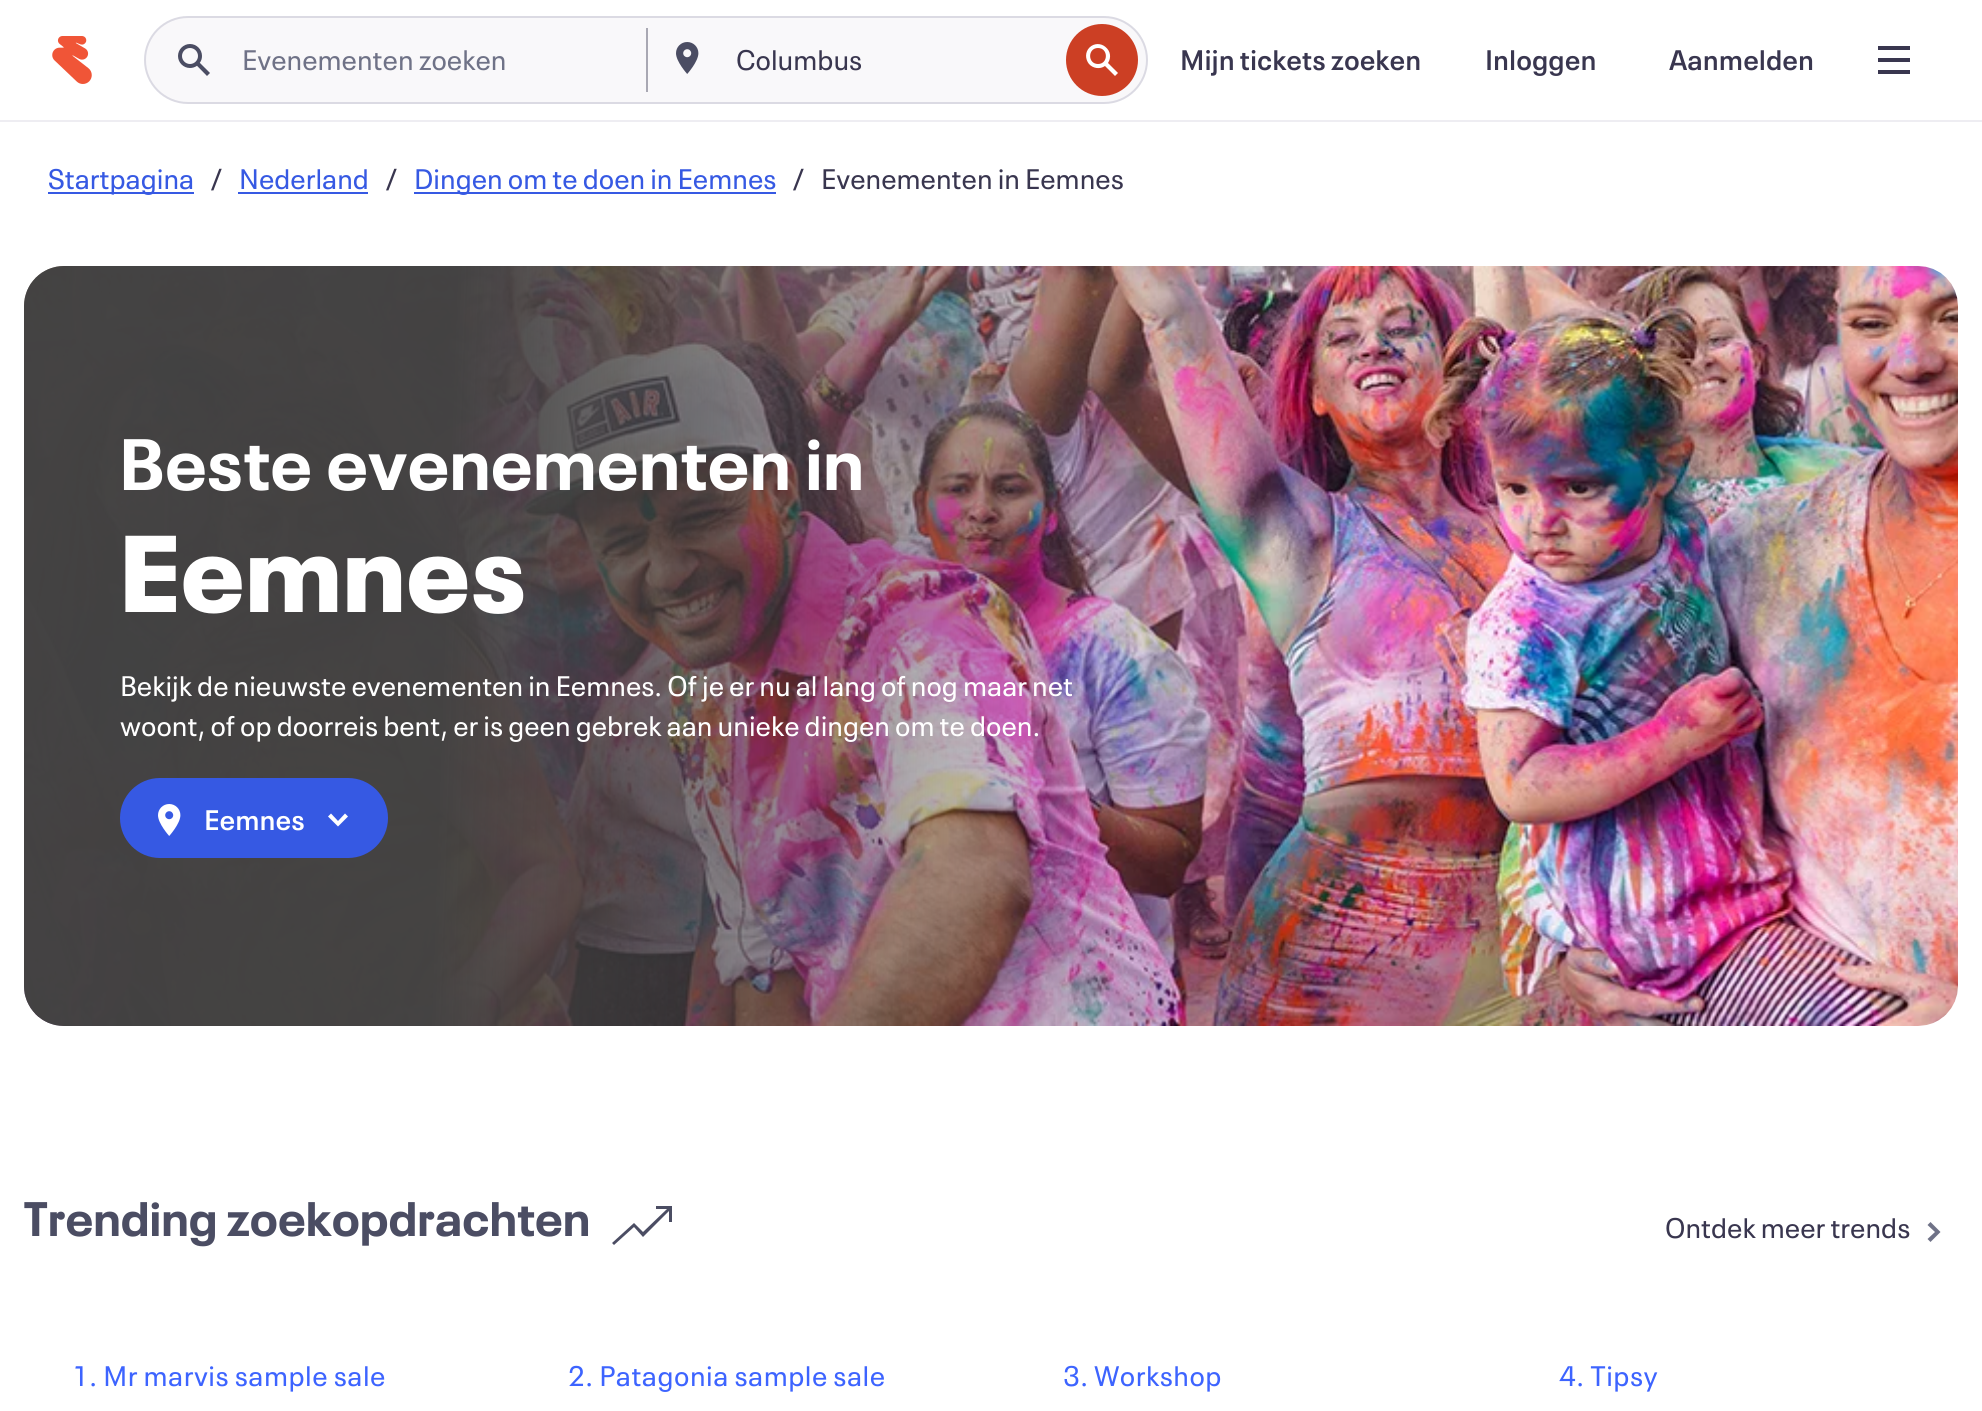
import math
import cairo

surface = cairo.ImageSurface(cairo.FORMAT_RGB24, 1982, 1411)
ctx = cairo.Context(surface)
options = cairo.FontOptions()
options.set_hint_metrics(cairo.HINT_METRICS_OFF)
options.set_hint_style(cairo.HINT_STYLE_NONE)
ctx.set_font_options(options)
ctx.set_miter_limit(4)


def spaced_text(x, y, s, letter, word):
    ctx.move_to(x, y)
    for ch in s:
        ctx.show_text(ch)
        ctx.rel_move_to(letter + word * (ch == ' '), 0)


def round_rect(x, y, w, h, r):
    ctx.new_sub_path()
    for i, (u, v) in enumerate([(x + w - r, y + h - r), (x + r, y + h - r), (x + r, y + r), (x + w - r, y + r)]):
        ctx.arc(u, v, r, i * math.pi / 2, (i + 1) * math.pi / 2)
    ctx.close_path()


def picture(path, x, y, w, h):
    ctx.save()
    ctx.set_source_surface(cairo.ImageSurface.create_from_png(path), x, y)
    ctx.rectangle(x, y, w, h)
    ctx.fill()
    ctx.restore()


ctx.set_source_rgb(1, 1, 1)
ctx.paint()
ctx.set_source_rgb(0.933, 0.929, 0.949)
ctx.rectangle(0, 120, 1982, 2)
ctx.fill()
picture("img1.png", 52, 36, 40, 48)
ctx.set_source_rgb(0.973, 0.969, 0.98)
round_rect(145, 17, 1002, 86, 43)
ctx.fill_preserve()
ctx.set_source_rgb(0.859, 0.855, 0.89)
ctx.stroke()
picture("img2.png", 178, 44, 32, 32)
ctx.select_font_face("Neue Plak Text")
ctx.set_font_size(28)
ctx.set_source_rgb(0.435, 0.447, 0.529)
ctx.move_to(242, 70)
ctx.show_text("Evenementen zoeken")
ctx.set_source_rgb(0.663, 0.659, 0.702)
ctx.rectangle(646, 28, 2, 64)
ctx.fill()
picture("img3.png", 676, 42, 23, 32)
ctx.set_source_rgb(0.224, 0.212, 0.31)
ctx.move_to(736, 70)
ctx.show_text("Columbus")
ctx.set_source_rgb(0.8, 0.247, 0.141)
ctx.new_path()
ctx.arc(1102, 60, 36, 0, 2 * math.pi)
ctx.fill()
ctx.set_source_rgb(1, 1, 1)
ctx.set_fill_rule(cairo.FILL_RULE_EVEN_ODD)
ctx.new_path()
ctx.move_to(1108, 63)
ctx.curve_to(1111.5, 57.5, 1110.5, 51, 1105.5, 47)
ctx.curve_to(1101, 43, 1094, 43, 1089.5, 47.5)
ctx.curve_to(1085, 52, 1085, 59, 1089, 64)
ctx.curve_to(1093, 68.5, 1100, 69.5, 1105, 66)
ctx.line_to(1115, 76)
ctx.line_to(1118, 73)
ctx.close_path()
ctx.move_to(1098, 64)
ctx.curve_to(1108.5, 64, 1108.5, 48, 1098, 48)
ctx.curve_to(1087.5, 48, 1087.5, 64, 1098, 64)
ctx.close_path()
ctx.fill()
ctx.select_font_face("Neue Plak Text SemiBold")
ctx.set_source_rgb(0.224, 0.212, 0.31)
ctx.move_to(1180, 70)
ctx.show_text("Mijn tickets zoeken")
ctx.move_to(1485, 70)
ctx.show_text("Inloggen")
ctx.move_to(1669, 70)
ctx.show_text("Aanmelden")
picture("img4.png", 1878, 46, 32, 28)
ctx.set_source_rgb(0.212, 0.349, 0.89)
ctx.rectangle(48, 192, 146, 2)
ctx.fill()
ctx.select_font_face("Neue Plak Text")
ctx.move_to(48, 189)
ctx.show_text("Startpagina")
ctx.set_source_rgb(0.224, 0.212, 0.31)
ctx.move_to(210, 189)
ctx.show_text("/")
ctx.set_source_rgb(0.212, 0.349, 0.89)
ctx.move_to(239, 189)
ctx.show_text("Nederland")
ctx.rectangle(238, 192, 130, 2)
ctx.fill()
ctx.set_source_rgb(0.224, 0.212, 0.31)
ctx.move_to(385, 189)
ctx.show_text("/")
ctx.set_source_rgb(0.212, 0.349, 0.89)
ctx.rectangle(414, 192, 362, 2)
ctx.fill()
ctx.move_to(414, 189)
ctx.show_text("Dingen om te doen in Eemnes")
ctx.set_source_rgb(0.224, 0.212, 0.31)
ctx.move_to(792, 189)
ctx.show_text("/")
ctx.move_to(821, 189)
ctx.show_text("Evenementen in Eemnes")
picture("img5.png", 24, 266, 1934, 760)
gradient = cairo.LinearGradient(12, 612, 1970, 680)
gradient.add_color_stop_rgba(0.22, 0.263, 0.259, 0.259, 0.99)
gradient.add_color_stop_rgba(0.64, 0.263, 0.259, 0.259, 0)
ctx.set_source(gradient)
round_rect(24, 266, 1934, 760, 40)
ctx.fill()
ctx.select_font_face("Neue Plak", cairo.FONT_SLANT_NORMAL, cairo.FONT_WEIGHT_BOLD)
ctx.set_font_size(72)
ctx.set_source_rgb(1, 1, 1)
spaced_text(120, 490, "Beste evenementen in", 1, 0)
ctx.select_font_face("Neue Plak Black")
ctx.set_font_size(108)
spaced_text(120, 612, "Eemnes", 2, 0)
ctx.select_font_face("Neue Plak Text")
ctx.set_font_size(28)
ctx.move_to(120, 696)
ctx.show_text("Bekijk de nieuwste evenementen in Eemnes. Of je er nu al lang of nog maar net")
ctx.move_to(120, 736)
ctx.show_text("woont, of op doorreis bent, er is geen gebrek aan unieke dingen om te doen.")
ctx.set_source_rgb(0.212, 0.349, 0.89)
round_rect(120, 778, 268, 80, 40)
ctx.fill()
picture("img6.png", 158, 804, 23, 32)
ctx.select_font_face("Neue Plak Text SemiBold")
ctx.set_source_rgb(1, 1, 1)
ctx.move_to(204, 830)
ctx.show_text("Eemnes")
ctx.new_path()
ctx.move_to(328, 816.5)
ctx.line_to(338, 826.5)
ctx.line_to(348, 816.5)
ctx.line_to(345, 813.5)
ctx.line_to(338, 821)
ctx.line_to(331, 813.5)
ctx.close_path()
ctx.fill()
ctx.select_font_face("Neue Plak", cairo.FONT_SLANT_NORMAL, cairo.FONT_WEIGHT_BOLD)
ctx.set_font_size(48)
ctx.set_source_rgb(0.294, 0.302, 0.388)
spaced_text(24, 1236, "Trending zoekopdrachten", 0.5, 0)
ctx.new_path()
ctx.move_to(656, 1206)
ctx.line_to(656, 1209)
ctx.line_to(667, 1209)
ctx.line_to(643, 1232)
ctx.line_to(634, 1223)
ctx.line_to(612, 1243)
ctx.line_to(614, 1245)
ctx.line_to(634, 1227)
ctx.line_to(643, 1237)
ctx.line_to(669, 1211)
ctx.line_to(669, 1222)
ctx.line_to(672, 1222)
ctx.line_to(672, 1206)
ctx.close_path()
ctx.fill()
ctx.select_font_face("Neue Plak Text")
ctx.set_font_size(28)
ctx.set_source_rgb(0.224, 0.212, 0.31)
ctx.move_to(1665, 1238)
ctx.show_text("Ontdek meer trends")
ctx.set_source_rgb(0.435, 0.447, 0.529)
ctx.new_path()
ctx.move_to(1930.5, 1242)
ctx.line_to(1940.5, 1232)
ctx.line_to(1930.5, 1222)
ctx.line_to(1927.5, 1225)
ctx.line_to(1935, 1232)
ctx.line_to(1927.5, 1239)
ctx.close_path()
ctx.fill()
ctx.set_source_rgb(0.239, 0.392, 1)
spaced_text(72, 1386, "1. Mr marvis sample sale", 0.5, 0)
spaced_text(568, 1386, "2. Patagonia sample sale", 0.5, 0)
spaced_text(1063, 1386, "3. Workshop", 0.5, 0)
spaced_text(1559, 1386, "4. Tipsy", 0.5, 0)
surface.write_to_png("page.png")
